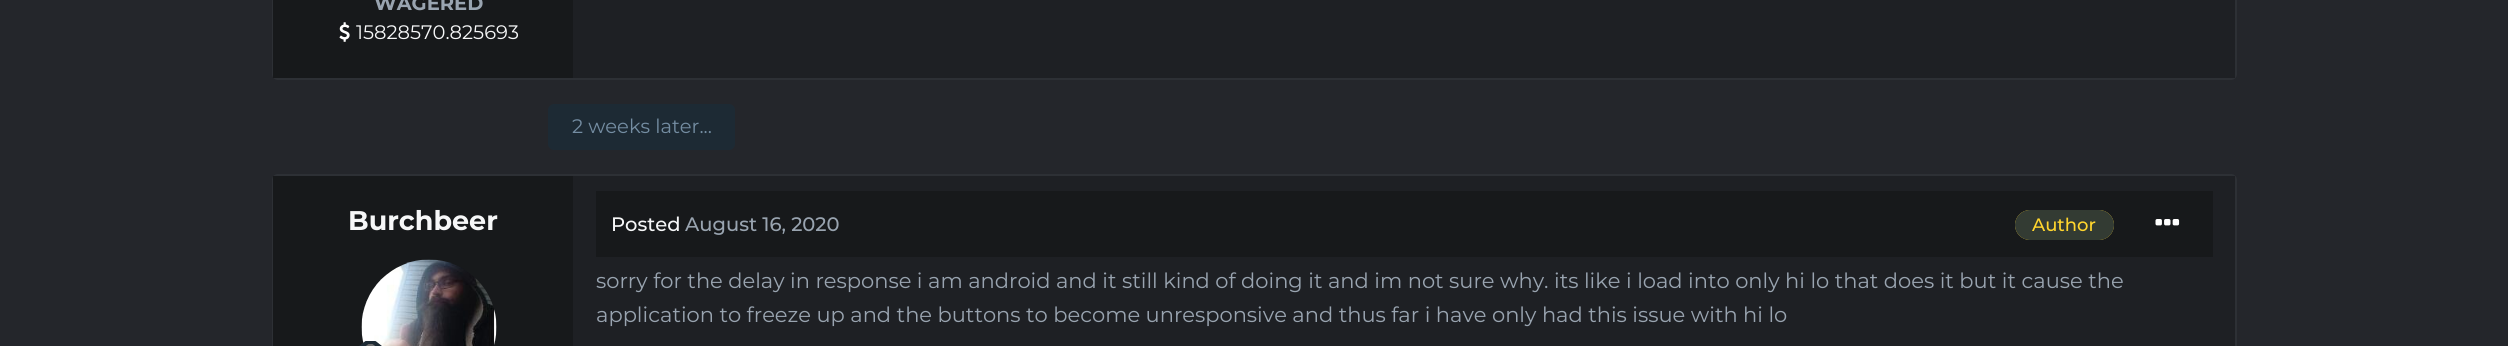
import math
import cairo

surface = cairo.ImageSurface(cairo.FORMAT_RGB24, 2508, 346)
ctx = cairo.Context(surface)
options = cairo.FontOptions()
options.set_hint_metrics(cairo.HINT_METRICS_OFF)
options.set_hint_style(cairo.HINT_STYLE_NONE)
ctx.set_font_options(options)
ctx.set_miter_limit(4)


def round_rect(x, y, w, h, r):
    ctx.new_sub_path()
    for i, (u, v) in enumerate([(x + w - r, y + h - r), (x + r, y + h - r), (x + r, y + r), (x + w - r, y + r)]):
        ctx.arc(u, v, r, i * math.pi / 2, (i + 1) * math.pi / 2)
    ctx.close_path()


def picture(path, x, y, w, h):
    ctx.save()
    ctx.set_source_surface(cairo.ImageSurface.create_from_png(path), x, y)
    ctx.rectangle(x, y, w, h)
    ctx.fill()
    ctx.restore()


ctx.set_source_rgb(0.141, 0.149, 0.169)
ctx.paint()
round_rect(273, -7, 1963, 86, 5)
ctx.set_source_rgb(0.176, 0.188, 0.208)
ctx.stroke()
ctx.set_source_rgb(0.09, 0.098, 0.106)
ctx.rectangle(273, 0, 300, 78)
ctx.fill()
ctx.select_font_face("Montserrat", cairo.FONT_SLANT_NORMAL, cairo.FONT_WEIGHT_BOLD)
ctx.set_font_size(19.5)
ctx.set_source_rgb(0.6, 0.643, 0.69)
ctx.move_to(374, 10)
ctx.show_text("WAGERED")
picture("img1.png", 339, 22, 11, 20)
ctx.select_font_face("Montserrat")
ctx.set_source_rgb(0.961, 0.965, 0.969)
ctx.move_to(356, 39)
ctx.show_text("15828570.825693")
ctx.set_source_rgb(0.118, 0.125, 0.141)
ctx.rectangle(573, 0, 1662, 78)
ctx.fill()
ctx.set_source_rgb(0.114, 0.165, 0.204)
round_rect(548, 104, 187, 46, 6)
ctx.fill()
ctx.set_source_rgb(0.455, 0.553, 0.635)
ctx.move_to(572, 133)
ctx.show_text("2 weeks later...")
round_rect(273, 175, 1963, 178, 5)
ctx.set_source_rgb(0.176, 0.188, 0.208)
ctx.stroke()
ctx.set_source_rgb(0.09, 0.098, 0.106)
ctx.rectangle(273, 176, 300, 170)
ctx.fill()
ctx.select_font_face("Montserrat", cairo.FONT_SLANT_NORMAL, cairo.FONT_WEIGHT_BOLD)
ctx.set_font_size(27)
ctx.set_source_rgb(0.961, 0.965, 0.969)
ctx.move_to(348, 230)
ctx.show_text("Burchbeer")
picture("img2.png", 361, 259, 136, 87)
picture("img3.png", 359, 341, 23, 5)
ctx.set_source_rgb(0.118, 0.125, 0.141)
ctx.rectangle(573, 176, 1662, 170)
ctx.fill()
ctx.set_source_rgb(0.09, 0.098, 0.106)
ctx.rectangle(596, 191, 1617, 66)
ctx.fill()
ctx.select_font_face("Montserrat Medium")
ctx.set_font_size(19.5)
ctx.set_source_rgb(0.961, 0.965, 0.969)
ctx.move_to(611, 231)
ctx.show_text("Posted")
ctx.set_source_rgb(0.6, 0.643, 0.69)
ctx.move_to(685, 231)
ctx.show_text("August 16, 2020")
ctx.set_source_rgb(1, 0.835, 0.176)
round_rect(2015, 210, 99, 30, 15)
ctx.fill()
ctx.set_source_rgba(0.114, 0.165, 0.204, 0.9)
round_rect(2015, 210, 99, 30, 15)
ctx.fill()
ctx.set_font_size(18)
ctx.set_source_rgb(1, 0.835, 0.176)
ctx.move_to(2032, 231)
ctx.show_text("Author")
picture("img4.png", 2155, 219, 25, 7)
ctx.select_font_face("Montserrat")
ctx.set_font_size(21)
ctx.set_source_rgb(0.6, 0.643, 0.69)
ctx.move_to(596, 288)
ctx.show_text("sorry for the delay in response i am android and it still kind of doing it and im not sure why. its like i load into only hi lo that does it but it cause the")
ctx.move_to(596, 322)
ctx.show_text("application to freeze up and the buttons to become unresponsive and thus far i have only had this issue with hi lo")
surface.write_to_png("page.png")
